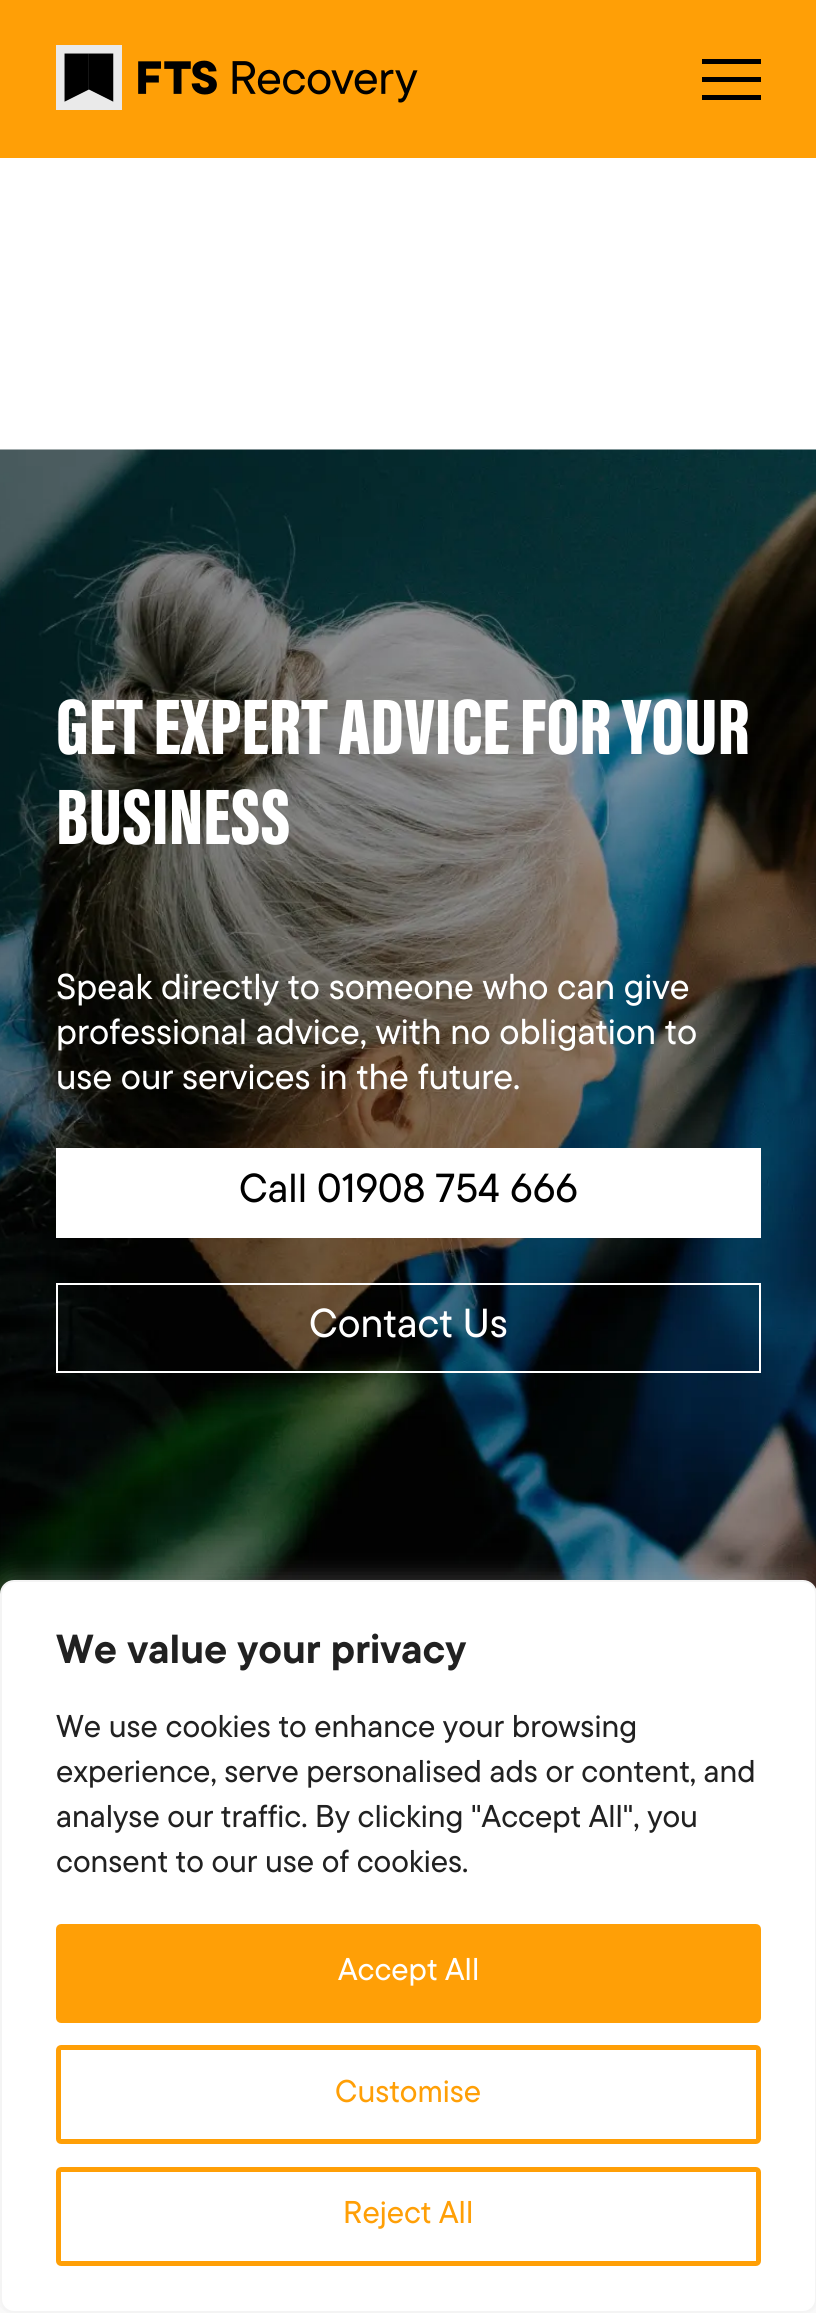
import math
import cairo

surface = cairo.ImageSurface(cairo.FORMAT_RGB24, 816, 2313)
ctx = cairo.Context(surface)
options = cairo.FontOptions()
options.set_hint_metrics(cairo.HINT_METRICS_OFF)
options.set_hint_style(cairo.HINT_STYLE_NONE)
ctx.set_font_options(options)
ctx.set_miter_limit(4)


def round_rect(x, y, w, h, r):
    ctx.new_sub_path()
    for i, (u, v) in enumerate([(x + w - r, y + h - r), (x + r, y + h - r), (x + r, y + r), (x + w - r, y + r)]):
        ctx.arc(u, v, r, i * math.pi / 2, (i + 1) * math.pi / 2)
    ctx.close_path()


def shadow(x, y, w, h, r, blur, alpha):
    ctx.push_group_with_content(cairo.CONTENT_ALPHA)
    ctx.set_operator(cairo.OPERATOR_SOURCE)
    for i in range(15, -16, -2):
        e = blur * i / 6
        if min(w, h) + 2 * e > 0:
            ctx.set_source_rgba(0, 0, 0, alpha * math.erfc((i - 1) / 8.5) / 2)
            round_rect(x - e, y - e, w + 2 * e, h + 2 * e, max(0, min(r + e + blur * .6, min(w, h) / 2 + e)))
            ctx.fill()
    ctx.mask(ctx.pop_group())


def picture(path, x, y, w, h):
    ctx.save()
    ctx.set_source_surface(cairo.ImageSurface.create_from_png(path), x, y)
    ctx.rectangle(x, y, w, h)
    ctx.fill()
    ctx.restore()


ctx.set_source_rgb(1, 1, 1)
ctx.paint()
ctx.set_source_rgb(1, 0.624, 0.024)
ctx.rectangle(0, 0, 816, 158)
ctx.fill()
picture("img1.png", 56, 45, 362, 65)
ctx.set_source_rgb(0, 0, 0)
ctx.rectangle(702, 59, 59, 5)
ctx.fill()
ctx.rectangle(702, 77, 59, 5)
ctx.fill()
ctx.rectangle(702, 95, 59, 5)
ctx.fill()
picture("img2.png", 0, 449, 816, 1145)
ctx.select_font_face("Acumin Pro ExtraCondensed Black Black")
ctx.set_font_size(81)
ctx.set_source_rgb(1, 1, 1)
ctx.move_to(56, 754)
ctx.show_text("GET EXPERT ADVICE FOR YOUR")
ctx.move_to(56, 844)
ctx.show_text("BUSINESS")
ctx.select_font_face("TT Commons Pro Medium")
ctx.set_font_size(36)
ctx.move_to(56, 999)
ctx.show_text("Speak directly to someone who can give")
ctx.move_to(56, 1044)
ctx.show_text("professional advice, with no obligation to")
ctx.move_to(56, 1089)
ctx.show_text("use our services in the future.")
ctx.rectangle(56, 1148, 705, 90)
ctx.fill()
ctx.set_font_size(40.5)
ctx.set_source_rgb(0, 0, 0)
ctx.move_to(239, 1202)
ctx.show_text("Call 01908 754 666")
ctx.rectangle(57, 1284, 703, 88)
ctx.set_source_rgb(1, 1, 1)
ctx.stroke()
ctx.move_to(309, 1337)
ctx.show_text("Contact Us")
ctx.set_source_rgb(0.675, 0.671, 0.671)
shadow(0, 1577, 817, 734, 14, 11, 0.3)
ctx.set_source_rgb(1, 1, 1)
round_rect(1, 1581, 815, 731, 13)
ctx.fill_preserve()
ctx.set_source_rgb(0.957, 0.957, 0.957)
ctx.stroke()
ctx.select_font_face("TT Commons Pro", cairo.FONT_SLANT_NORMAL, cairo.FONT_WEIGHT_BOLD)
ctx.set_source_rgb(0.129, 0.129, 0.129)
ctx.move_to(56, 1663)
ctx.show_text("We value your privacy")
ctx.select_font_face("TT Commons Pro Medium")
ctx.set_font_size(31.5)
ctx.move_to(56, 1737)
ctx.show_text("We use cookies to enhance your browsing")
ctx.move_to(56, 1782)
ctx.show_text("experience, serve personalised ads or content, and")
ctx.move_to(56, 1827)
ctx.show_text("analyse our traffic. By clicking \"Accept All\", you")
ctx.move_to(56, 1872)
ctx.show_text("consent to our use of cookies.")
ctx.set_source_rgb(1, 0.624, 0.024)
round_rect(58.5, 1926.5, 700, 94, 2.5)
ctx.fill_preserve()
ctx.set_line_width(5)
ctx.stroke()
ctx.set_source_rgb(1, 1, 1)
ctx.move_to(338, 1980)
ctx.show_text("Accept All")
round_rect(58.5, 2047.5, 700, 94, 2.5)
ctx.set_source_rgb(1, 0.624, 0.024)
ctx.stroke()
ctx.move_to(335, 2102)
ctx.show_text("Customise")
round_rect(58.5, 2169.5, 700, 94, 2.5)
ctx.stroke()
ctx.move_to(343, 2223)
ctx.show_text("Reject All")
surface.write_to_png("page.png")
